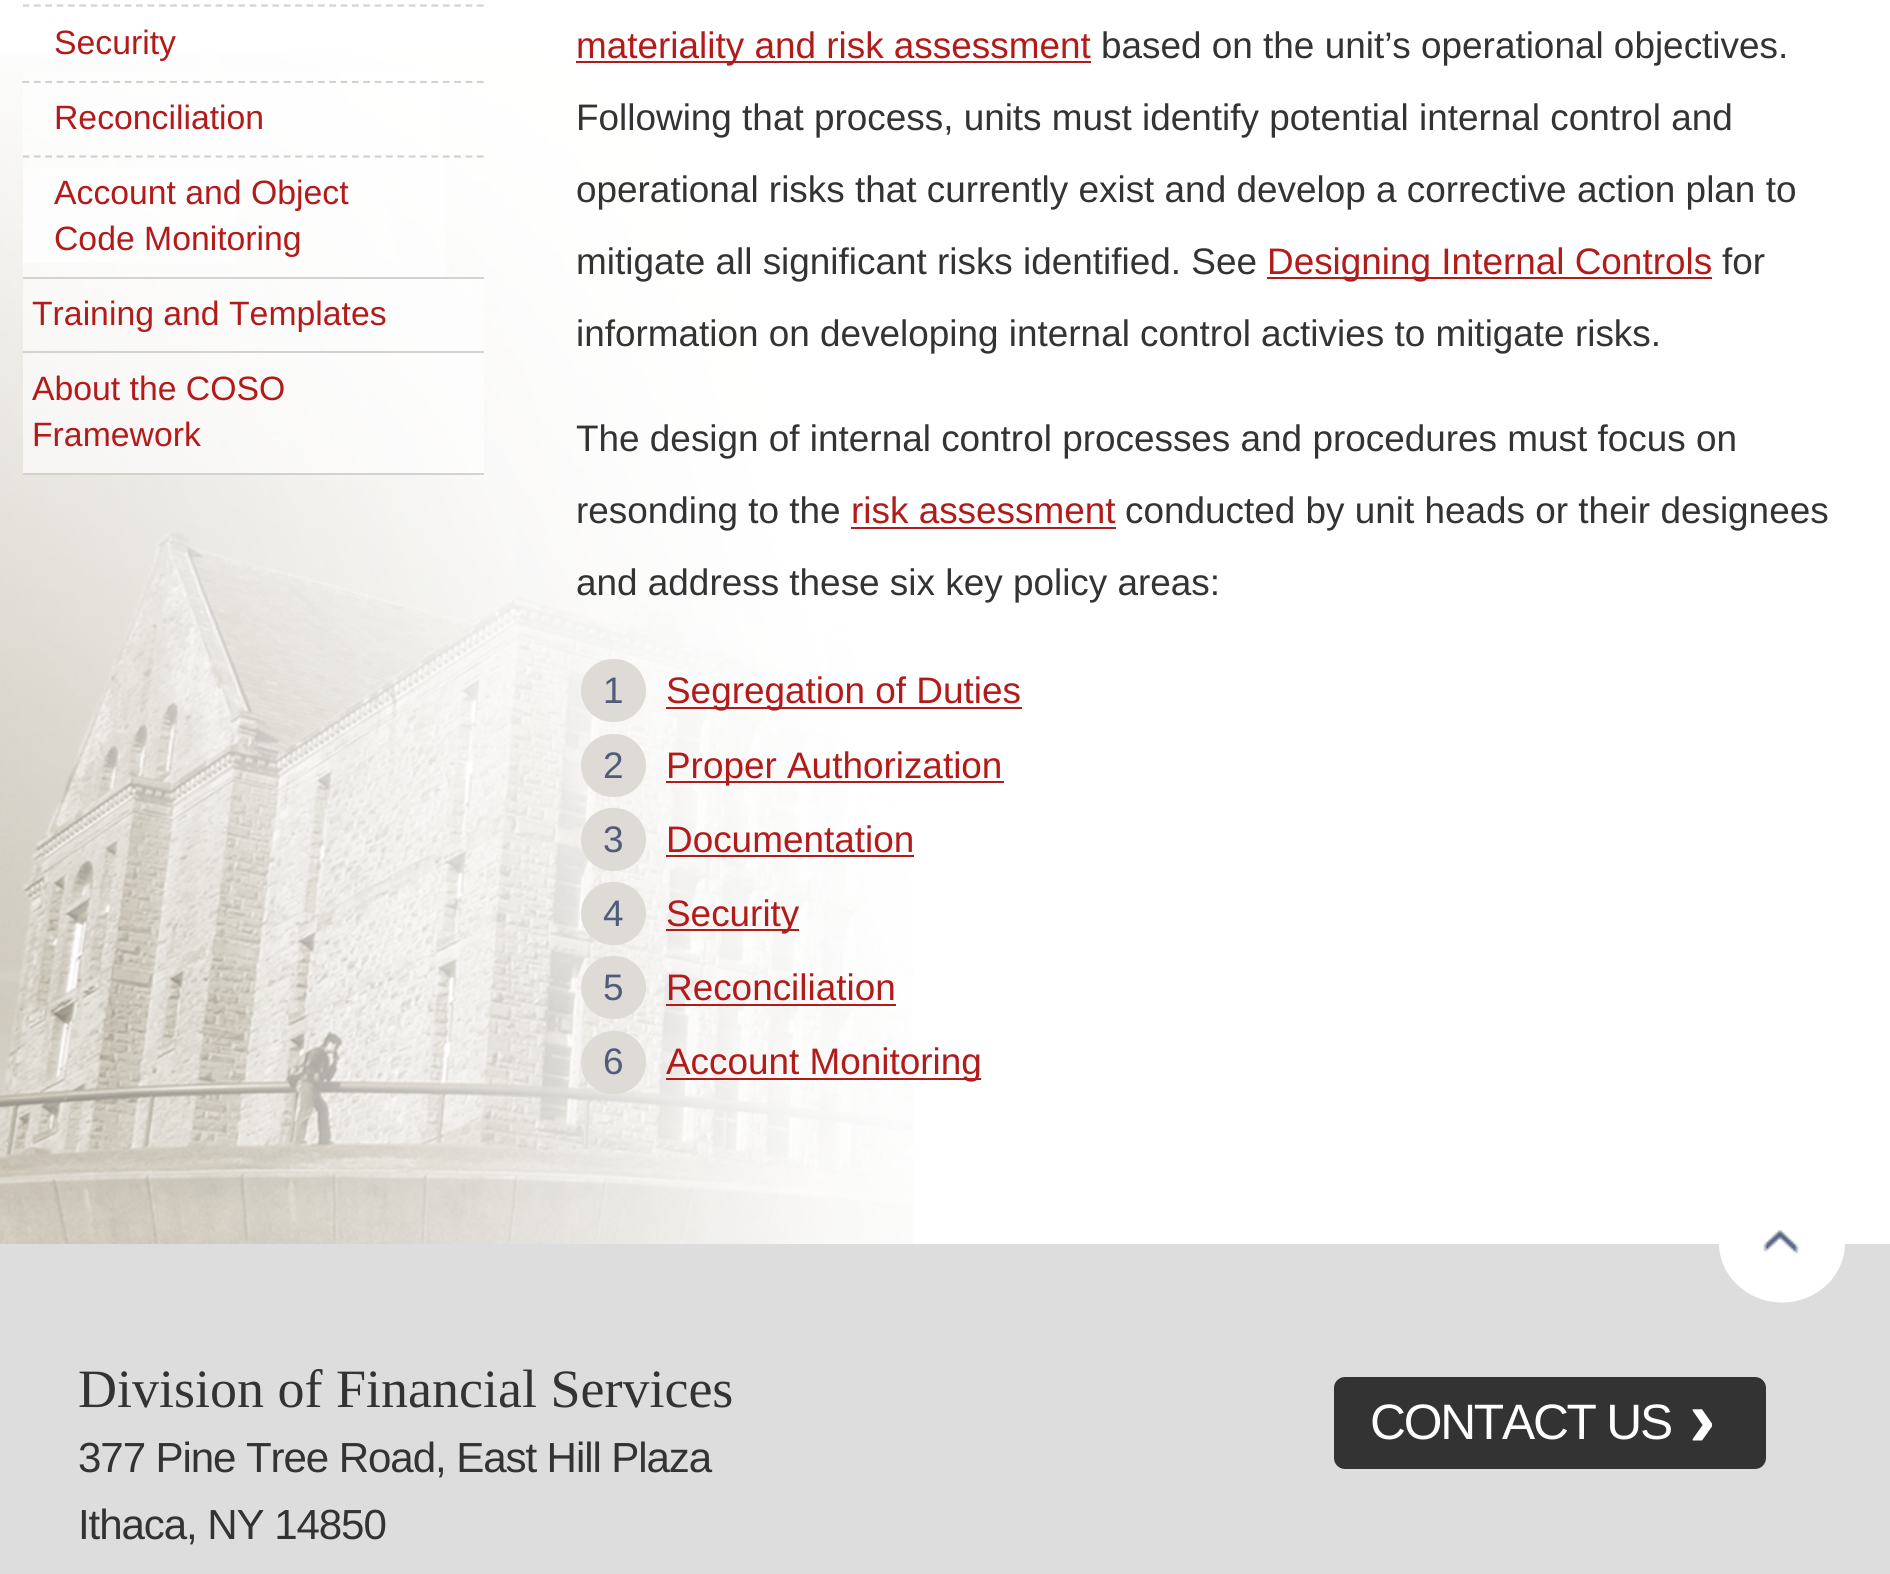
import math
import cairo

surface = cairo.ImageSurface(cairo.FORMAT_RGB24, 1890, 1574)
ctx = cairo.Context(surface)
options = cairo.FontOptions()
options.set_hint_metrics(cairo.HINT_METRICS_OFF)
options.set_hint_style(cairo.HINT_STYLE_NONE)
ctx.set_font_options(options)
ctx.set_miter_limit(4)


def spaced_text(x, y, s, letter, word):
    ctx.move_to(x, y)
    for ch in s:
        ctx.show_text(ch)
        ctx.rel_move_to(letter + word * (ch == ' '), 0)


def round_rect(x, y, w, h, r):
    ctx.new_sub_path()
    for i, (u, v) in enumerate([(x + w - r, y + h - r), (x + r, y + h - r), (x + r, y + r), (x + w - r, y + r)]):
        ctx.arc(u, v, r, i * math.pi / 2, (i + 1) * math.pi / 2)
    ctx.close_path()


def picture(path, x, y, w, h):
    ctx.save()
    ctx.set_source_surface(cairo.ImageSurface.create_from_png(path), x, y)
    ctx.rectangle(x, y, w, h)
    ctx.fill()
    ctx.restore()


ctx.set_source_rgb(1, 1, 1)
ctx.paint()
picture("img1.png", 0, 52, 913, 1192)
ctx.set_source_rgb(0.831, 0.82, 0.82)
ctx.rectangle(23, 473, 461, 2)
ctx.fill()
ctx.set_source_rgba(1, 1, 1, 0.6)
ctx.rectangle(23, 72, 422, 205)
ctx.fill()
ctx.set_source_rgb(0.831, 0.82, 0.82)
ctx.rectangle(23, 277, 461, 2)
ctx.fill()
ctx.save()
ctx.rectangle(23, 0, 461, 277)
ctx.clip()
ctx.new_path()
ctx.move_to(22.5, 5.5)
ctx.line_to(484, 5.5)
ctx.set_line_width(2.2)
ctx.set_dash([6.75, 4.61])
ctx.stroke()
ctx.restore()
ctx.new_path()
ctx.move_to(22.5, 82)
ctx.line_to(484, 82)
ctx.set_line_width(2.2)
ctx.set_dash([6.75, 4.61])
ctx.stroke()
ctx.select_font_face("Liberation Sans")
ctx.set_font_size(33.75)
ctx.set_source_rgb(0.702, 0.106, 0.106)
ctx.move_to(54, 54)
ctx.show_text("Security")
ctx.set_source_rgba(1, 1, 1, 0.6)
ctx.rectangle(23, 83, 460, 1)
ctx.fill()
ctx.save()
ctx.rectangle(23, 0, 461, 277)
ctx.clip()
ctx.new_path()
ctx.move_to(22.5, 156.5)
ctx.line_to(484, 156.5)
ctx.set_source_rgb(0.831, 0.82, 0.82)
ctx.stroke()
ctx.restore()
ctx.set_source_rgb(0.702, 0.106, 0.106)
ctx.move_to(54, 129)
ctx.show_text("Reconciliation")
ctx.set_source_rgba(1, 1, 1, 0.6)
ctx.rectangle(23, 167, 214, 96)
ctx.fill()
ctx.set_source_rgb(0.702, 0.106, 0.106)
ctx.move_to(54, 204)
ctx.show_text("Account and Object")
ctx.move_to(54, 250)
ctx.show_text("Code Monitoring")
ctx.set_source_rgba(1, 1, 1, 0.6)
ctx.rectangle(23, 279, 461, 72)
ctx.fill()
ctx.set_source_rgb(0.831, 0.82, 0.82)
ctx.rectangle(23, 351, 461, 2)
ctx.fill()
ctx.set_source_rgb(0.702, 0.106, 0.106)
ctx.move_to(32, 325)
ctx.show_text("Training and Templates")
ctx.set_source_rgba(1, 1, 1, 0.6)
ctx.rectangle(23, 353, 461, 120)
ctx.fill()
ctx.set_source_rgb(0.702, 0.106, 0.106)
ctx.move_to(32, 400)
ctx.show_text("About the COSO")
ctx.move_to(32, 446)
ctx.show_text("Framework")
ctx.rectangle(576, 61, 515, 2)
ctx.fill()
ctx.set_font_size(36.9)
ctx.move_to(576, 58)
ctx.show_text("materiality and risk assessment")
ctx.set_source_rgb(0.2, 0.2, 0.2)
ctx.move_to(1101, 58)
ctx.show_text("based on the unit’s operational objectives.")
ctx.move_to(576, 130)
ctx.show_text("Following that process, units must identify potential internal control and")
ctx.move_to(576, 202)
ctx.show_text("operational risks that currently exist and develop a corrective action plan to")
ctx.move_to(576, 274)
ctx.show_text("mitigate all significant risks identified. See")
ctx.set_source_rgb(0.702, 0.106, 0.106)
ctx.rectangle(1267, 277, 445, 2)
ctx.fill()
ctx.move_to(1267, 274)
ctx.show_text("Designing Internal Controls")
ctx.set_source_rgb(0.2, 0.2, 0.2)
ctx.move_to(1722, 274)
ctx.show_text("for")
ctx.move_to(576, 346)
ctx.show_text("information on developing internal control activies to mitigate risks.")
ctx.move_to(576, 451)
ctx.show_text("The design of internal control processes and procedures must focus on")
ctx.move_to(576, 523)
ctx.show_text("resonding to the")
ctx.set_source_rgb(0.702, 0.106, 0.106)
ctx.move_to(851, 523)
ctx.show_text("risk assessment")
ctx.rectangle(851, 527, 265, 2)
ctx.fill()
ctx.set_source_rgb(0.2, 0.2, 0.2)
ctx.move_to(1125, 523)
ctx.show_text("conducted by unit heads or their designees")
ctx.move_to(576, 595)
ctx.show_text("and address these six key policy areas:")
ctx.set_source_rgb(0.871, 0.859, 0.839)
round_rect(581, 659, 65, 63, 31.5)
ctx.fill()
ctx.set_source_rgb(0.318, 0.361, 0.482)
ctx.move_to(603, 703)
ctx.show_text("1")
ctx.set_source_rgb(0.702, 0.106, 0.106)
ctx.rectangle(666, 707, 356, 2)
ctx.fill()
ctx.move_to(666, 703)
ctx.show_text("Segregation of Duties")
ctx.set_source_rgb(0.871, 0.859, 0.839)
round_rect(581, 734, 65, 63, 31.5)
ctx.fill()
ctx.set_source_rgb(0.318, 0.361, 0.482)
ctx.move_to(603, 778)
ctx.show_text("2")
ctx.set_source_rgb(0.702, 0.106, 0.106)
ctx.rectangle(666, 781, 338, 2)
ctx.fill()
ctx.move_to(666, 778)
ctx.show_text("Proper Authorization")
ctx.set_source_rgb(0.871, 0.859, 0.839)
round_rect(581, 808, 65, 63, 31.5)
ctx.fill()
ctx.set_source_rgb(0.318, 0.361, 0.482)
ctx.move_to(603, 852)
ctx.show_text("3")
ctx.set_source_rgb(0.702, 0.106, 0.106)
ctx.move_to(666, 852)
ctx.show_text("Documentation")
ctx.rectangle(666, 855, 248, 2)
ctx.fill()
ctx.set_source_rgb(0.871, 0.859, 0.839)
round_rect(581, 882, 65, 63, 31.5)
ctx.fill()
ctx.set_source_rgb(0.318, 0.361, 0.482)
ctx.move_to(603, 926)
ctx.show_text("4")
ctx.set_source_rgb(0.702, 0.106, 0.106)
ctx.rectangle(666, 929, 133, 2)
ctx.fill()
ctx.move_to(666, 926)
ctx.show_text("Security")
ctx.set_source_rgb(0.871, 0.859, 0.839)
round_rect(581, 956, 65, 63, 31.5)
ctx.fill()
ctx.set_source_rgb(0.318, 0.361, 0.482)
ctx.move_to(603, 1000)
ctx.show_text("5")
ctx.set_source_rgb(0.702, 0.106, 0.106)
ctx.move_to(666, 1000)
ctx.show_text("Reconciliation")
ctx.rectangle(666, 1004, 230, 2)
ctx.fill()
ctx.set_source_rgb(0.871, 0.859, 0.839)
round_rect(581, 1031, 65, 63, 31.5)
ctx.fill()
ctx.set_source_rgb(0.318, 0.361, 0.482)
ctx.move_to(603, 1074)
ctx.show_text("6")
ctx.set_source_rgb(0.702, 0.106, 0.106)
ctx.rectangle(666, 1078, 315, 2)
ctx.fill()
ctx.move_to(666, 1074)
ctx.show_text("Account Monitoring")
ctx.set_source_rgb(0.867, 0.867, 0.867)
ctx.rectangle(0, 1244, 1890, 330)
ctx.fill()
picture("img2.png", 1719, 1230, 126, 73)
ctx.select_font_face("Liberation Serif")
ctx.set_font_size(54)
ctx.set_source_rgb(0.2, 0.2, 0.2)
ctx.move_to(78, 1407)
ctx.show_text("Division of Financial Services")
ctx.select_font_face("Liberation Sans")
ctx.set_font_size(42.1)
spaced_text(78, 1472, "377 Pine Tree Road, East Hill Plaza", -1.1, 0)
spaced_text(78, 1539, "Ithaca, NY 14850", -1.1, 0)
round_rect(1334, 1377, 432, 92, 11)
ctx.fill()
ctx.set_font_size(49.75)
ctx.set_source_rgb(1, 1, 1)
spaced_text(1370, 1439, "CONTACT US", -2.25, 0)
ctx.select_font_face("Liberation Sans", cairo.FONT_SLANT_NORMAL, cairo.FONT_WEIGHT_BOLD)
ctx.set_font_size(80)
spaced_text(1689, 1446, "›", -2.25, 0)
surface.write_to_png("page.png")
